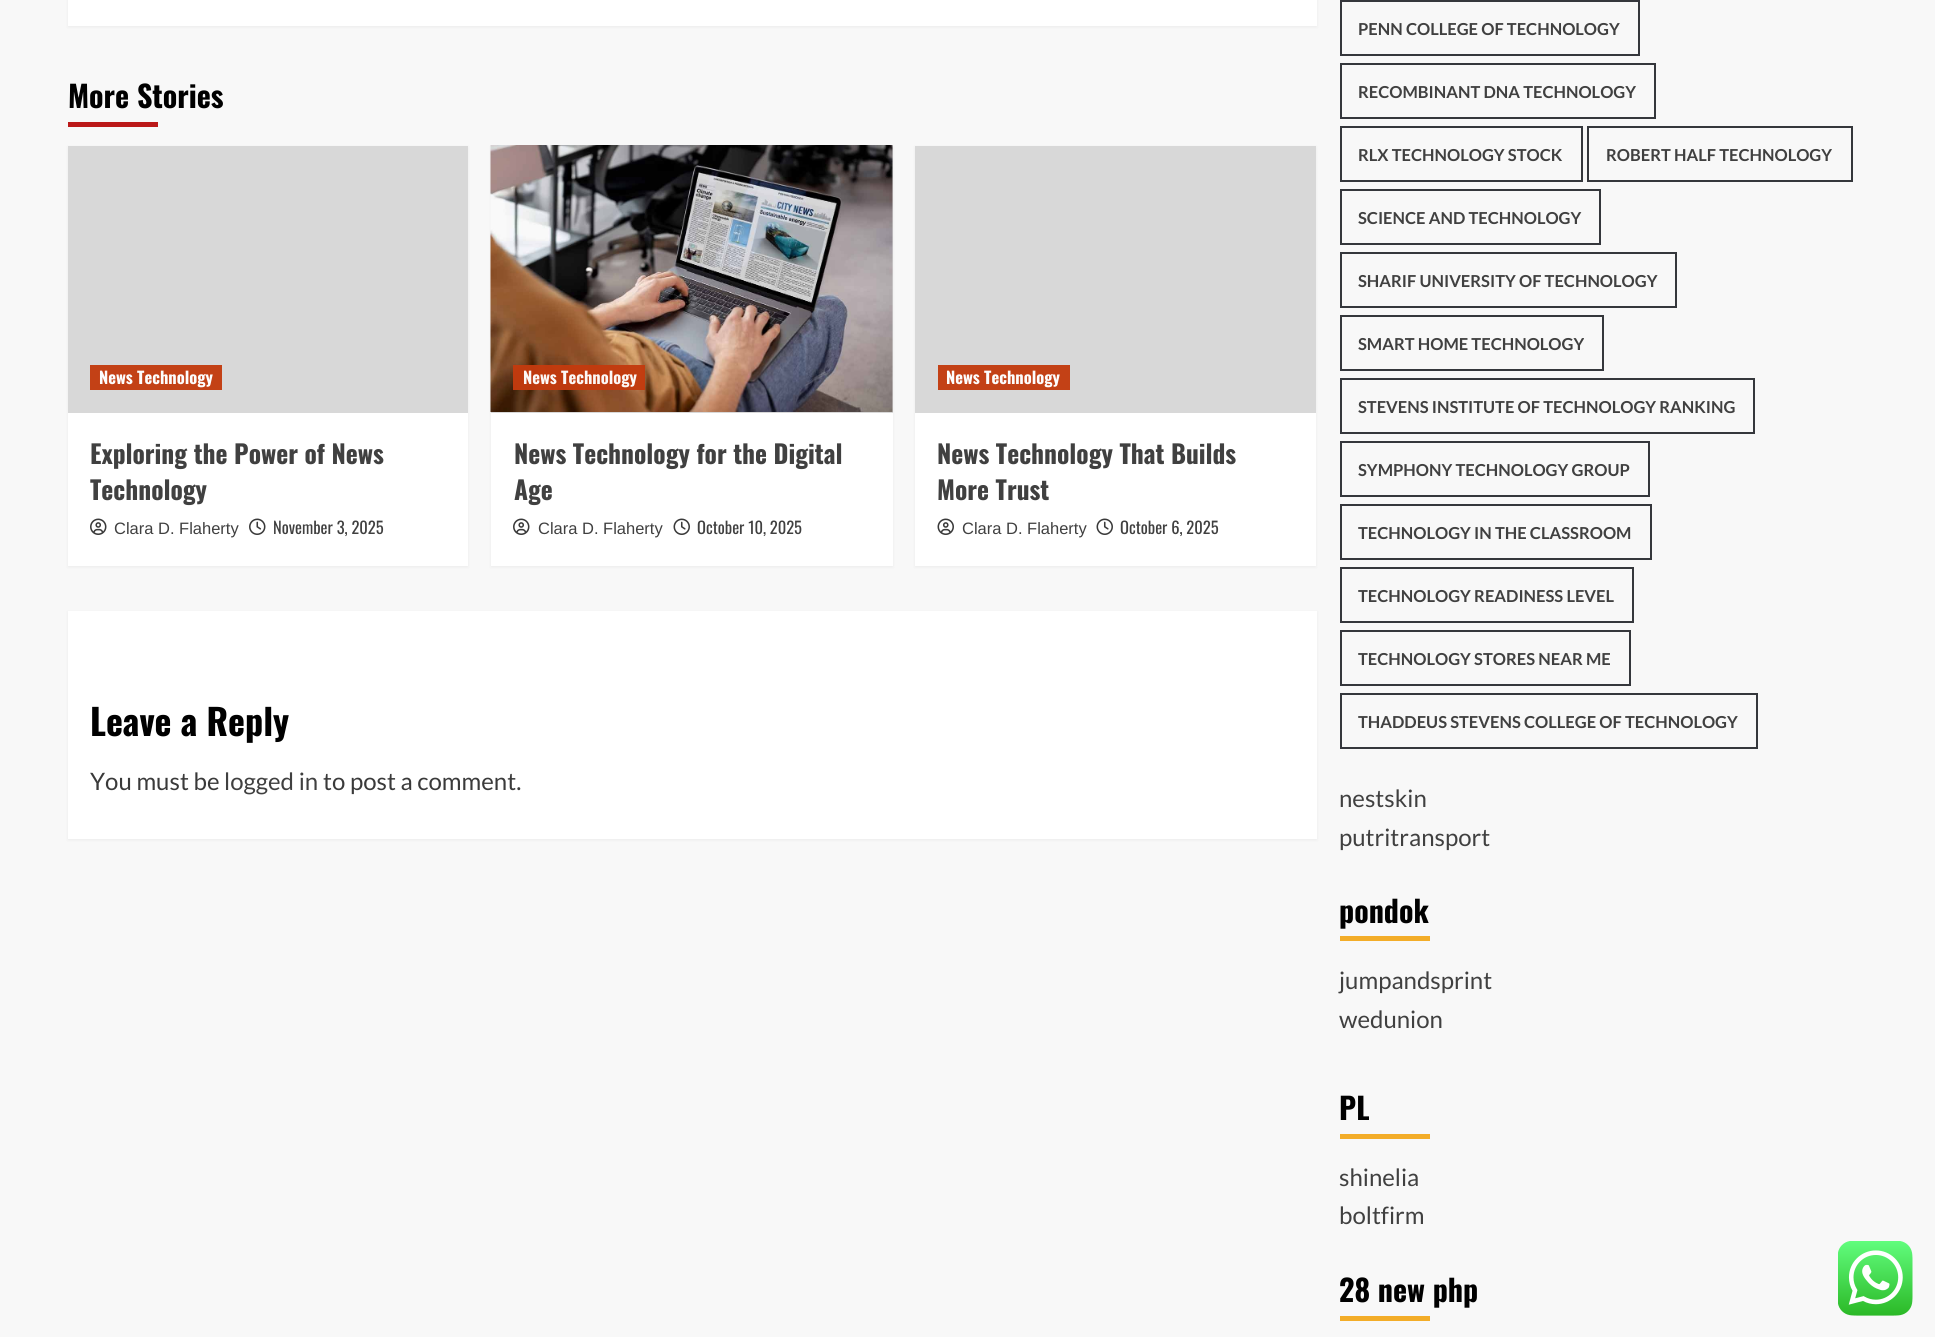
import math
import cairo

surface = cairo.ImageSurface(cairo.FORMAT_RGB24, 1935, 1337)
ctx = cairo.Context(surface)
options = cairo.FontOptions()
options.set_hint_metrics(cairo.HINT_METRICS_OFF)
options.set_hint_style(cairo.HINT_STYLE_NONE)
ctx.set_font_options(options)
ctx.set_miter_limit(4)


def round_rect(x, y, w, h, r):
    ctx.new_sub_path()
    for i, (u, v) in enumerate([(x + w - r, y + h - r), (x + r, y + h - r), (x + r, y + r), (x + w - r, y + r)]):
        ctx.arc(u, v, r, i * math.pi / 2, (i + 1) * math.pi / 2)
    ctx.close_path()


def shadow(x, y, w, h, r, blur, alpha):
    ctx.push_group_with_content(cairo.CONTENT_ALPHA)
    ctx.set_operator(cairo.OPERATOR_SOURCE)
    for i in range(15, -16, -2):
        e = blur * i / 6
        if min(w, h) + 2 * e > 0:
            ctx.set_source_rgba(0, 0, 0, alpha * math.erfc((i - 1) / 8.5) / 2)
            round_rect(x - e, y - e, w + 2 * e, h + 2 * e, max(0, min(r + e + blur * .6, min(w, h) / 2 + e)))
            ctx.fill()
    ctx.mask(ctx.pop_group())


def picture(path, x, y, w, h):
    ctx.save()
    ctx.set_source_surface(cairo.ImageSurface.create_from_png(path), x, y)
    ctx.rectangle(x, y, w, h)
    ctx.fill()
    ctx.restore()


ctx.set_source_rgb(0.969, 0.969, 0.969)
ctx.paint()
ctx.set_source_rgb(0, 0, 0)
shadow(68, -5, 1249, 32, 0, 1.5, 0.05)
ctx.set_source_rgb(1, 1, 1)
ctx.rectangle(68, 0, 1249, 26)
ctx.fill()
ctx.select_font_face("Oswald", cairo.FONT_SLANT_NORMAL, cairo.FONT_WEIGHT_BOLD)
ctx.set_font_size(30)
ctx.set_source_rgb(0, 0, 0)
ctx.move_to(68, 108)
ctx.show_text("More Stories")
ctx.set_source_rgb(0.733, 0.098, 0.098)
ctx.rectangle(68, 122, 90, 5)
ctx.fill()
ctx.set_source_rgb(0, 0, 0)
shadow(68, 147, 400, 420, 0, 1.5, 0.05)
ctx.set_source_rgb(1, 1, 1)
ctx.rectangle(68, 413, 400, 153)
ctx.fill()
ctx.set_source_rgb(0.847, 0.847, 0.847)
ctx.rectangle(68, 146, 400, 267)
ctx.fill()
ctx.set_source_rgb(0.765, 0.255, 0.086)
ctx.rectangle(90, 365, 132, 25)
ctx.fill()
ctx.set_font_size(16.5)
ctx.set_source_rgb(0.992, 0.992, 0.992)
ctx.move_to(99, 384)
ctx.show_text("News Technology")
ctx.set_font_size(25.5)
ctx.set_source_rgb(0.251, 0.251, 0.251)
ctx.move_to(90, 464)
ctx.show_text("Exploring the Power of News")
ctx.move_to(90, 500)
ctx.show_text("Technology")
picture("img1.png", 90, 518, 17, 17)
ctx.select_font_face("Liberation Sans")
ctx.set_font_size(16.5)
ctx.move_to(114, 534)
ctx.show_text("Clara D. Flaherty")
picture("img2.png", 249, 518, 17, 17)
ctx.select_font_face("Oswald")
ctx.move_to(273, 534)
ctx.show_text("November 3, 2025")
ctx.set_source_rgb(0, 0, 0)
shadow(491, 147, 402, 420, 0, 1.5, 0.05)
ctx.set_source_rgb(1, 1, 1)
ctx.rectangle(491, 413, 402, 153)
ctx.fill()
ctx.set_source_rgb(0.847, 0.847, 0.847)
ctx.rectangle(491, 146, 402, 267)
ctx.fill()
picture("img3.png", 490, 145, 403, 267)
ctx.set_source_rgba(0.761, 0.231, 0.055, 0.96)
ctx.rectangle(513, 365, 132, 25)
ctx.fill()
ctx.select_font_face("Oswald", cairo.FONT_SLANT_NORMAL, cairo.FONT_WEIGHT_BOLD)
ctx.set_source_rgb(0.988, 0.969, 0.961)
ctx.move_to(523, 384)
ctx.show_text("News Technology")
ctx.set_font_size(25.5)
ctx.set_source_rgb(0.251, 0.251, 0.251)
ctx.move_to(514, 464)
ctx.show_text("News Technology for the Digital")
ctx.move_to(514, 500)
ctx.show_text("Age")
picture("img1.png", 513, 518, 17, 17)
ctx.select_font_face("Liberation Sans")
ctx.set_font_size(16.5)
ctx.move_to(538, 534)
ctx.show_text("Clara D. Flaherty")
picture("img4.png", 673, 518, 17, 17)
ctx.select_font_face("Oswald")
ctx.move_to(697, 534)
ctx.show_text("October 10, 2025")
ctx.set_source_rgb(0, 0, 0)
shadow(915, 147, 401, 420, 0, 1.5, 0.05)
ctx.set_source_rgb(1, 1, 1)
ctx.rectangle(915, 413, 401, 153)
ctx.fill()
ctx.set_source_rgb(0.847, 0.847, 0.847)
ctx.rectangle(915, 146, 401, 267)
ctx.fill()
ctx.set_source_rgb(0.765, 0.255, 0.086)
ctx.rectangle(938, 365, 132, 25)
ctx.fill()
ctx.select_font_face("Oswald", cairo.FONT_SLANT_NORMAL, cairo.FONT_WEIGHT_BOLD)
ctx.set_source_rgb(0.992, 0.992, 0.992)
ctx.move_to(946, 384)
ctx.show_text("News Technology")
ctx.set_font_size(25.5)
ctx.set_source_rgb(0.251, 0.251, 0.251)
ctx.move_to(937, 464)
ctx.show_text("News Technology That Builds")
ctx.move_to(937, 500)
ctx.show_text("More Trust")
picture("img5.png", 937, 518, 17, 17)
ctx.select_font_face("Liberation Sans")
ctx.set_font_size(16.5)
ctx.move_to(962, 534)
ctx.show_text("Clara D. Flaherty")
picture("img4.png", 1096, 518, 17, 17)
ctx.select_font_face("Oswald")
ctx.move_to(1120, 534)
ctx.show_text("October 6, 2025")
ctx.set_source_rgb(0, 0, 0)
shadow(68, 612, 1249, 228, 0, 1.5, 0.05)
ctx.set_source_rgb(1, 1, 1)
ctx.rectangle(68, 611, 1249, 228)
ctx.fill()
ctx.select_font_face("Oswald", cairo.FONT_SLANT_NORMAL, cairo.FONT_WEIGHT_BOLD)
ctx.set_font_size(36)
ctx.set_source_rgb(0, 0, 0)
ctx.move_to(90, 736)
ctx.show_text("Leave a Reply")
ctx.select_font_face("Lato")
ctx.set_font_size(24)
ctx.set_source_rgb(0.227, 0.227, 0.227)
ctx.move_to(90, 790)
ctx.show_text("You must be")
ctx.set_source_rgb(0.251, 0.251, 0.251)
ctx.move_to(224, 790)
ctx.show_text("logged in")
ctx.set_source_rgb(0.227, 0.227, 0.227)
ctx.move_to(323, 790)
ctx.show_text("to post a comment.")
ctx.rectangle(1341, 1, 298, 54)
ctx.set_source_rgb(0.208, 0.216, 0.235)
ctx.stroke()
ctx.select_font_face("Lato", cairo.FONT_SLANT_NORMAL, cairo.FONT_WEIGHT_BOLD)
ctx.set_font_size(16.5)
ctx.set_source_rgb(0.251, 0.251, 0.251)
ctx.move_to(1358, 35)
ctx.show_text("PENN COLLEGE OF TECHNOLOGY")
ctx.rectangle(1341, 64, 314, 54)
ctx.set_source_rgb(0.208, 0.216, 0.235)
ctx.stroke()
ctx.set_source_rgb(0.251, 0.251, 0.251)
ctx.move_to(1358, 98)
ctx.show_text("RECOMBINANT DNA TECHNOLOGY")
ctx.rectangle(1341, 127, 241, 54)
ctx.set_source_rgb(0.208, 0.216, 0.235)
ctx.stroke()
ctx.set_source_rgb(0.251, 0.251, 0.251)
ctx.move_to(1358, 161)
ctx.show_text("RLX TECHNOLOGY STOCK")
ctx.rectangle(1588, 127, 264, 54)
ctx.set_source_rgb(0.208, 0.216, 0.235)
ctx.stroke()
ctx.set_source_rgb(0.251, 0.251, 0.251)
ctx.move_to(1606, 161)
ctx.show_text("ROBERT HALF TECHNOLOGY")
ctx.rectangle(1341, 190, 259, 54)
ctx.set_source_rgb(0.208, 0.216, 0.235)
ctx.stroke()
ctx.set_source_rgb(0.251, 0.251, 0.251)
ctx.move_to(1358, 224)
ctx.show_text("SCIENCE AND TECHNOLOGY")
ctx.rectangle(1341, 253, 335, 54)
ctx.set_source_rgb(0.208, 0.216, 0.235)
ctx.stroke()
ctx.set_source_rgb(0.251, 0.251, 0.251)
ctx.move_to(1358, 287)
ctx.show_text("SHARIF UNIVERSITY OF TECHNOLOGY")
ctx.rectangle(1341, 316, 262, 54)
ctx.set_source_rgb(0.208, 0.216, 0.235)
ctx.stroke()
ctx.set_source_rgb(0.251, 0.251, 0.251)
ctx.move_to(1358, 350)
ctx.show_text("SMART HOME TECHNOLOGY")
ctx.rectangle(1341, 379, 413, 54)
ctx.set_source_rgb(0.208, 0.216, 0.235)
ctx.stroke()
ctx.set_source_rgb(0.251, 0.251, 0.251)
ctx.move_to(1358, 413)
ctx.show_text("STEVENS INSTITUTE OF TECHNOLOGY RANKING")
ctx.rectangle(1341, 442, 308, 54)
ctx.set_source_rgb(0.208, 0.216, 0.235)
ctx.stroke()
ctx.set_source_rgb(0.251, 0.251, 0.251)
ctx.move_to(1358, 476)
ctx.show_text("SYMPHONY TECHNOLOGY GROUP")
ctx.rectangle(1341, 505, 310, 54)
ctx.set_source_rgb(0.208, 0.216, 0.235)
ctx.stroke()
ctx.set_source_rgb(0.251, 0.251, 0.251)
ctx.move_to(1358, 539)
ctx.show_text("TECHNOLOGY IN THE CLASSROOM")
ctx.rectangle(1341, 568, 292, 54)
ctx.set_source_rgb(0.208, 0.216, 0.235)
ctx.stroke()
ctx.set_source_rgb(0.251, 0.251, 0.251)
ctx.move_to(1358, 602)
ctx.show_text("TECHNOLOGY READINESS LEVEL")
ctx.rectangle(1341, 631, 289, 54)
ctx.set_source_rgb(0.208, 0.216, 0.235)
ctx.stroke()
ctx.set_source_rgb(0.251, 0.251, 0.251)
ctx.move_to(1358, 665)
ctx.show_text("TECHNOLOGY STORES NEAR ME")
ctx.rectangle(1341, 694, 416, 54)
ctx.set_source_rgb(0.208, 0.216, 0.235)
ctx.stroke()
ctx.set_source_rgb(0.251, 0.251, 0.251)
ctx.move_to(1358, 728)
ctx.show_text("THADDEUS STEVENS COLLEGE OF TECHNOLOGY")
ctx.select_font_face("Lato")
ctx.set_font_size(24)
ctx.move_to(1339, 807)
ctx.show_text("nestskin")
ctx.move_to(1339, 846)
ctx.show_text("putritransport")
ctx.select_font_face("Oswald", cairo.FONT_SLANT_NORMAL, cairo.FONT_WEIGHT_BOLD)
ctx.set_font_size(30)
ctx.set_source_rgb(0, 0, 0)
ctx.move_to(1339, 923)
ctx.show_text("pondok")
ctx.set_source_rgb(0.953, 0.678, 0.161)
ctx.rectangle(1340, 936, 90, 5)
ctx.fill()
ctx.select_font_face("Lato")
ctx.set_font_size(24)
ctx.set_source_rgb(0.251, 0.251, 0.251)
ctx.move_to(1339, 989)
ctx.show_text("jumpandsprint")
ctx.move_to(1339, 1028)
ctx.show_text("wedunion")
ctx.select_font_face("Oswald", cairo.FONT_SLANT_NORMAL, cairo.FONT_WEIGHT_BOLD)
ctx.set_font_size(30)
ctx.set_source_rgb(0, 0, 0)
ctx.move_to(1339, 1120)
ctx.show_text("PL")
ctx.set_source_rgb(0.953, 0.678, 0.161)
ctx.rectangle(1340, 1134, 90, 5)
ctx.fill()
ctx.select_font_face("Lato")
ctx.set_font_size(24)
ctx.set_source_rgb(0.251, 0.251, 0.251)
ctx.move_to(1339, 1186)
ctx.show_text("shinelia")
ctx.move_to(1339, 1224)
ctx.show_text("boltfirm")
ctx.select_font_face("Oswald", cairo.FONT_SLANT_NORMAL, cairo.FONT_WEIGHT_BOLD)
ctx.set_font_size(30)
ctx.set_source_rgb(0, 0, 0)
ctx.move_to(1339, 1302)
ctx.show_text("28 new php")
ctx.set_source_rgb(0.953, 0.678, 0.161)
ctx.rectangle(1340, 1316, 90, 5)
ctx.fill()
picture("img6.png", 1838, 1241, 75, 75)
surface.write_to_png("page.png")
